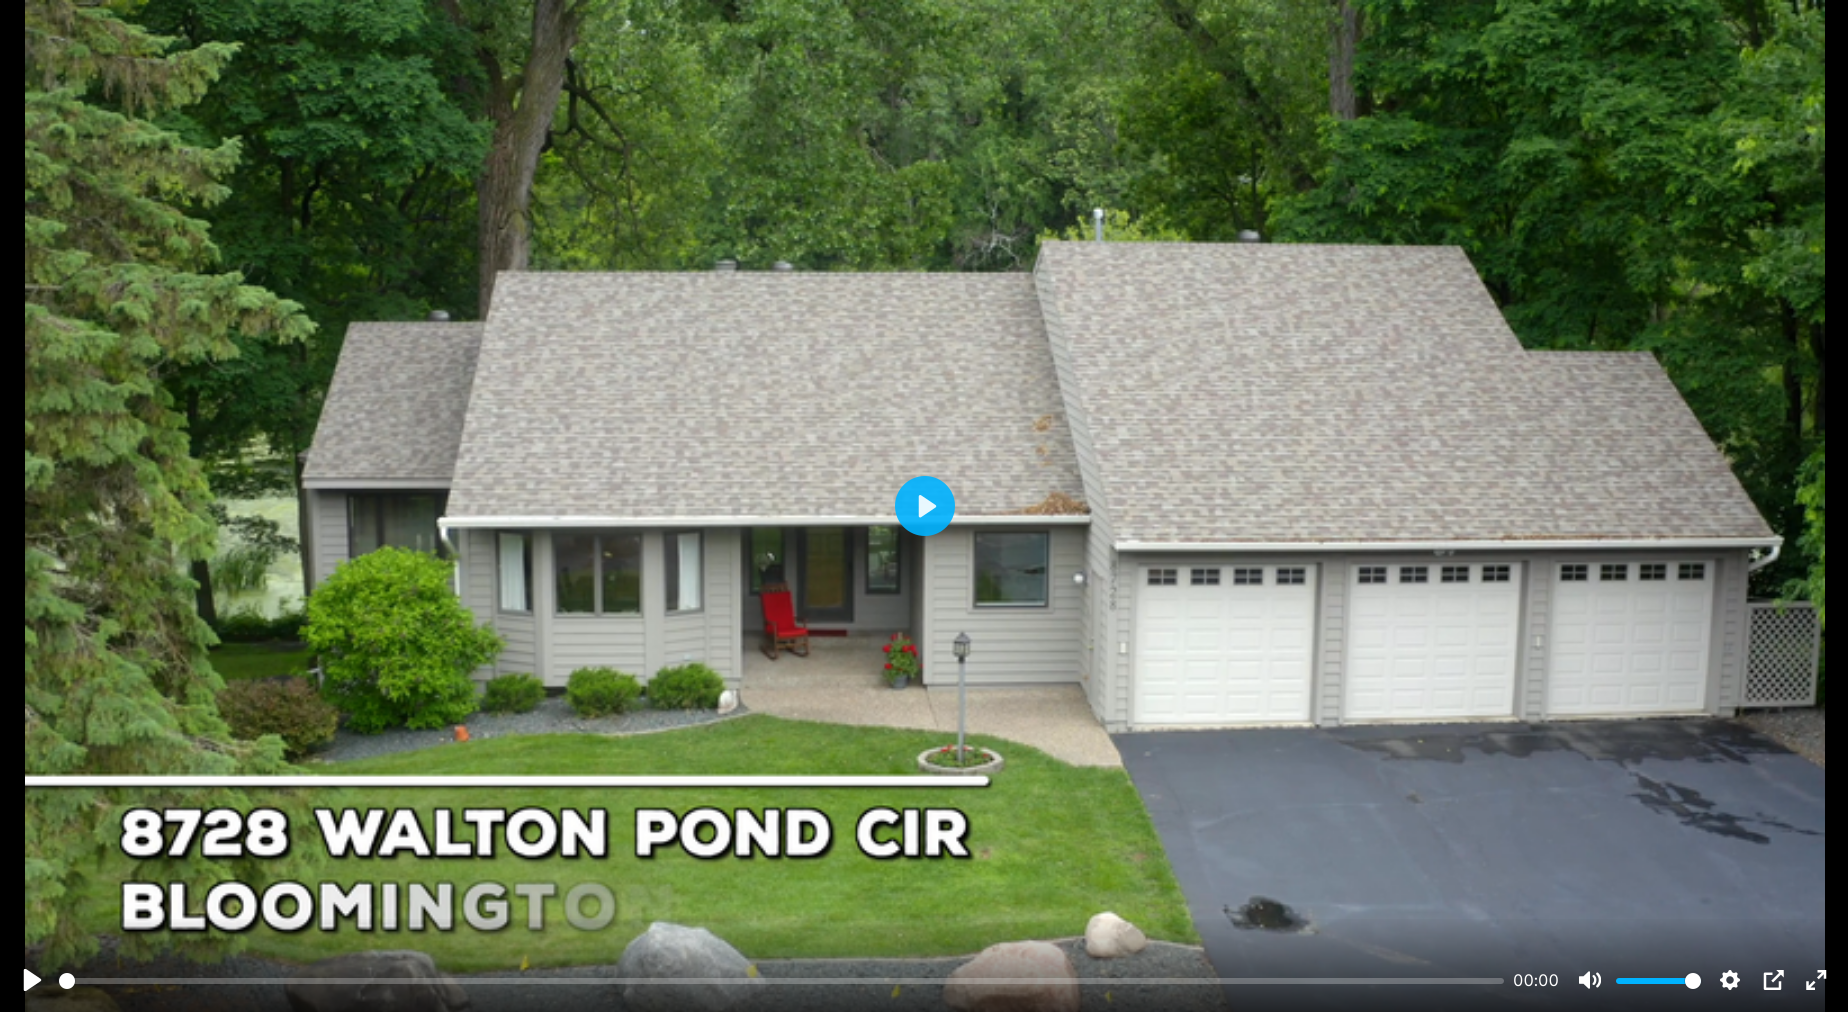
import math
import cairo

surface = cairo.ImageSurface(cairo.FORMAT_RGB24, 1848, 1012)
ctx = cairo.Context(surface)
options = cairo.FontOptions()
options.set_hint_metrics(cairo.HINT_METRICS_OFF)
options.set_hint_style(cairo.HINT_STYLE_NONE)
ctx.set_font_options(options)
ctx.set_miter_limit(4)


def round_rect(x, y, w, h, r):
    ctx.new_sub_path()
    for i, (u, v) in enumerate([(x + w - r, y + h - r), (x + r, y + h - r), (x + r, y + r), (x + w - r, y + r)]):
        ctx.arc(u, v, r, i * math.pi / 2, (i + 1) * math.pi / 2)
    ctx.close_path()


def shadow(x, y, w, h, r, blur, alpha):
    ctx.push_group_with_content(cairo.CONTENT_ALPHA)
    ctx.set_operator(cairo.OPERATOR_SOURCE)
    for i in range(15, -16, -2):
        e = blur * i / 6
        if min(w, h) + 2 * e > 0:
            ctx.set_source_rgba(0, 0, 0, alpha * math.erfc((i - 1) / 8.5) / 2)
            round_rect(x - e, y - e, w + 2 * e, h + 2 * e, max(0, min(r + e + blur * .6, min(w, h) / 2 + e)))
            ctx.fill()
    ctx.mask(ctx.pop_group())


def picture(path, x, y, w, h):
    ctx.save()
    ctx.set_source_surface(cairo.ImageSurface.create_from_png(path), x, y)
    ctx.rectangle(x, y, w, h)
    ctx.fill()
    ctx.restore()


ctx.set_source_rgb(0, 0, 0)
ctx.paint()
picture("img1.png", 25, 0, 1800, 1012)
ctx.set_source_rgba(0, 0.702, 1, 0.9)
ctx.arc(925, 506, 30, 0, 2 * math.pi)
ctx.fill()
picture("img2.png", 918, 495, 19, 23)
gradient = cairo.LinearGradient(924, 916, 924, 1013)
gradient.add_color_stop_rgba(0, 0, 0, 0, 0)
gradient.add_color_stop_rgba(1, 0, 0, 0, 0.75)
ctx.set_source(gradient)
ctx.rectangle(25, 919, 1800, 93)
ctx.fill()
picture("img3.png", 23, 969, 19, 22)
ctx.set_source_rgba(1, 1, 1, 0.25)
round_rect(59, 978, 1445, 6, 3)
ctx.fill()
round_rect(58.5, 971.5, 17, 18, 8.5)
ctx.set_source_rgba(0.137, 0.157, 0.184, 0.2)
ctx.set_line_width(1)
ctx.stroke()
ctx.set_source_rgb(1, 1, 1)
ctx.arc(67, 981, 8, 0, 2 * math.pi)
ctx.fill()
ctx.select_font_face("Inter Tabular")
ctx.set_font_size(16)
ctx.move_to(1513, 986)
ctx.show_text("00:00")
picture("img4.png", 1579, 971, 22, 18)
ctx.set_source_rgb(0, 0.702, 1)
round_rect(1616, 978, 85, 6, 3)
ctx.fill()
ctx.arc(1693.5, 980.5, 9, 0, 2 * math.pi)
ctx.set_source_rgba(0.137, 0.157, 0.184, 0.2)
ctx.stroke()
ctx.set_source_rgb(0.137, 0.157, 0.184)
shadow(1685, 974, 16, 16, 8, 0.5, 0.15)
ctx.set_source_rgb(1, 1, 1)
ctx.arc(1693, 981, 8, 0, 2 * math.pi)
ctx.fill()
picture("img5.png", 1720, 970, 20, 20)
picture("img6.png", 1763, 970, 21, 20)
picture("img7.png", 1806, 970, 21, 20)
surface.write_to_png("page.png")
